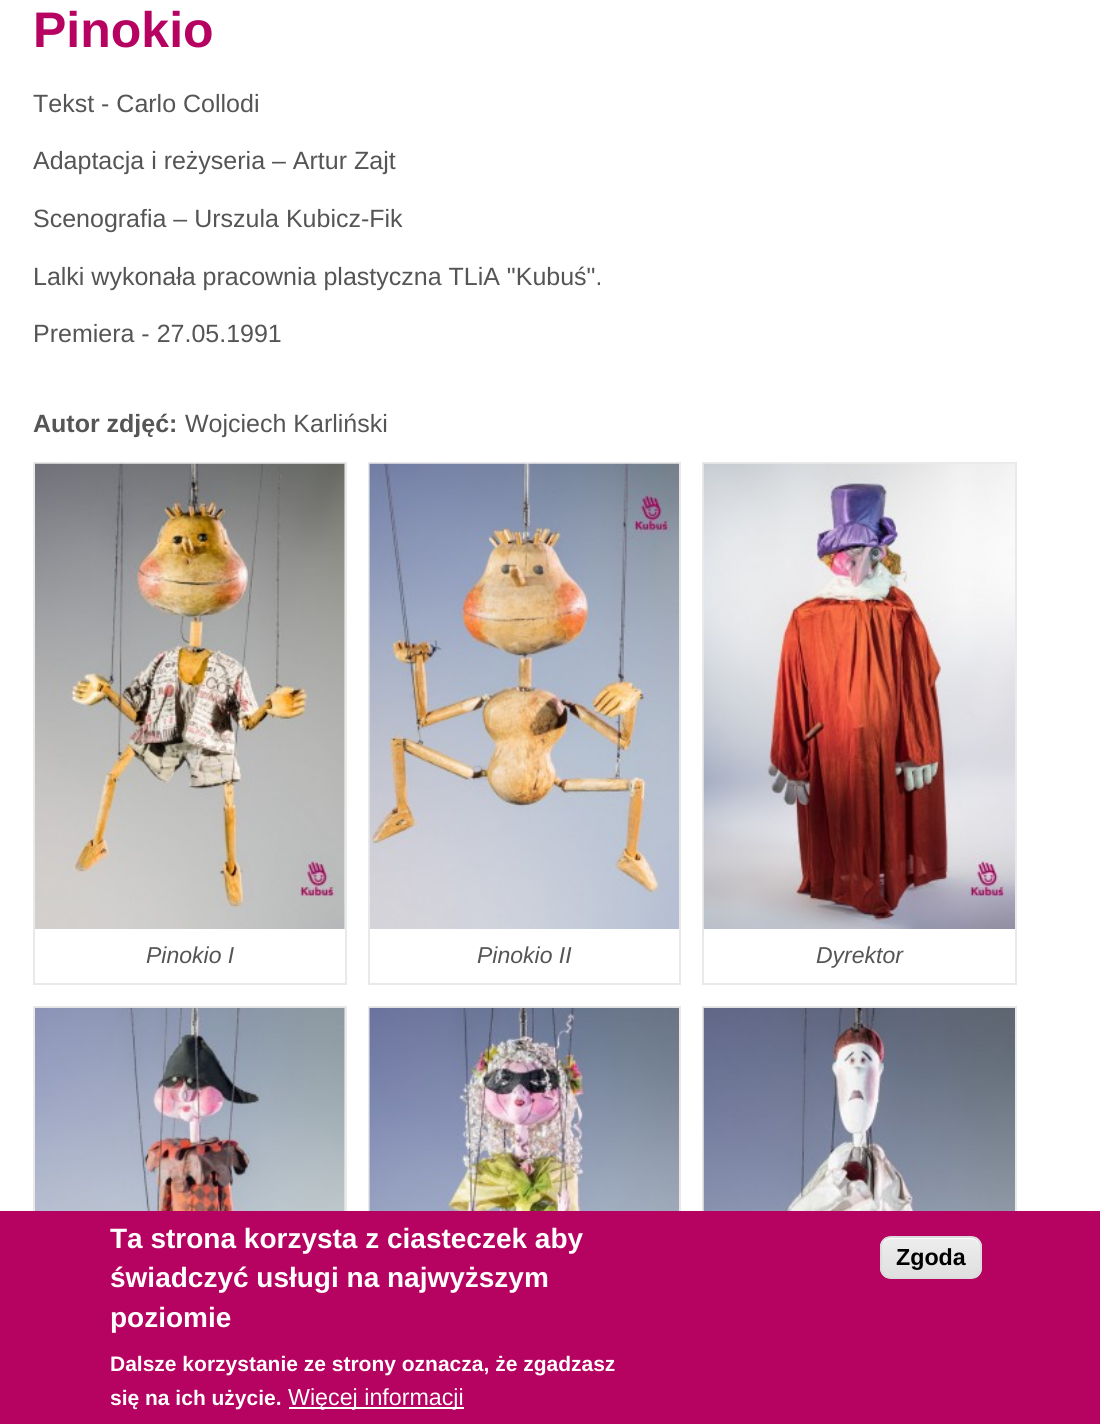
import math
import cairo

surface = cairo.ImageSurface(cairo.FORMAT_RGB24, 1100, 1424)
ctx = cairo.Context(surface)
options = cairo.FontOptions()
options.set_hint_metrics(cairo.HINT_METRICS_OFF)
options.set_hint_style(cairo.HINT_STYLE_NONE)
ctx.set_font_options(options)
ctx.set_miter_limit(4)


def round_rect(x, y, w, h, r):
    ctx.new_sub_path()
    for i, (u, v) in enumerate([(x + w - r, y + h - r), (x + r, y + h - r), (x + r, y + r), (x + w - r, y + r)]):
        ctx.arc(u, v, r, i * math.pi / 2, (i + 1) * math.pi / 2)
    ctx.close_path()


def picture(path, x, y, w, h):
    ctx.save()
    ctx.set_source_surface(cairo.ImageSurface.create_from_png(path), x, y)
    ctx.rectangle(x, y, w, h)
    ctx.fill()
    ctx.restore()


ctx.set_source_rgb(1, 1, 1)
ctx.paint()
ctx.select_font_face("Liberation Sans", cairo.FONT_SLANT_NORMAL, cairo.FONT_WEIGHT_BOLD)
ctx.set_font_size(50)
ctx.set_source_rgb(0.714, 0.008, 0.38)
ctx.move_to(33, 47)
ctx.show_text("Pinokio")
ctx.select_font_face("Liberation Sans")
ctx.set_font_size(25)
ctx.set_source_rgb(0.333, 0.333, 0.333)
ctx.move_to(33, 112)
ctx.show_text("Tekst - Carlo Collodi")
ctx.move_to(33, 169)
ctx.show_text("Adaptacja i reżyseria – Artur Zajt")
ctx.move_to(33, 227)
ctx.show_text("Scenografia – Urszula Kubicz-Fik")
ctx.move_to(33, 285)
ctx.show_text("Lalki wykonała pracownia plastyczna TLiA \"Kubuś\".")
ctx.move_to(33, 342)
ctx.show_text("Premiera - 27.05.1991")
ctx.select_font_face("Liberation Sans", cairo.FONT_SLANT_NORMAL, cairo.FONT_WEIGHT_BOLD)
ctx.move_to(33, 432)
ctx.show_text("Autor zdjęć:")
ctx.select_font_face("Liberation Sans")
ctx.move_to(185, 432)
ctx.show_text("Wojciech Karliński")
ctx.rectangle(34, 463, 312, 521)
ctx.set_source_rgb(0.914, 0.914, 0.914)
ctx.stroke()
picture("img1.png", 35, 463, 310, 466)
ctx.select_font_face("Liberation Sans", cairo.FONT_SLANT_ITALIC)
ctx.set_font_size(23)
ctx.set_source_rgb(0.333, 0.333, 0.333)
ctx.move_to(146, 963)
ctx.show_text("Pinokio I")
ctx.rectangle(369, 463, 311, 521)
ctx.set_source_rgb(0.914, 0.914, 0.914)
ctx.stroke()
ctx.set_source_rgba(1, 1, 1, 0.9)
ctx.rectangle(369, 464, 1, 465)
ctx.fill()
picture("img2.png", 369, 463, 310, 466)
ctx.set_source_rgb(0.333, 0.333, 0.333)
ctx.move_to(477, 963)
ctx.show_text("Pinokio II")
ctx.rectangle(703, 463, 313, 521)
ctx.set_source_rgb(0.914, 0.914, 0.914)
ctx.stroke()
picture("img3.png", 703, 463, 312, 466)
ctx.set_source_rgb(0.333, 0.333, 0.333)
ctx.move_to(816, 963)
ctx.show_text("Dyrektor")
ctx.rectangle(34, 1007, 312, 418)
ctx.set_source_rgb(0.914, 0.914, 0.914)
ctx.stroke()
picture("img4.png", 35, 1007, 310, 204)
ctx.rectangle(369, 1007, 311, 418)
ctx.stroke()
ctx.set_source_rgba(1, 1, 1, 0.9)
ctx.rectangle(369, 1008, 1, 203)
ctx.fill()
picture("img5.png", 369, 1007, 310, 204)
ctx.rectangle(703, 1007, 313, 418)
ctx.set_source_rgb(0.914, 0.914, 0.914)
ctx.stroke()
picture("img6.png", 703, 1007, 312, 204)
ctx.set_source_rgb(0.714, 0.008, 0.38)
ctx.rectangle(0, 1211, 1100, 213)
ctx.fill()
ctx.select_font_face("Liberation Sans", cairo.FONT_SLANT_NORMAL, cairo.FONT_WEIGHT_BOLD)
ctx.set_font_size(28)
ctx.set_source_rgb(1, 1, 1)
ctx.move_to(110, 1248)
ctx.show_text("Ta strona korzysta z ciasteczek aby")
ctx.move_to(110, 1287)
ctx.show_text("świadczyć usługi na najwyższym")
ctx.move_to(110, 1327)
ctx.show_text("poziomie")
ctx.set_font_size(21)
ctx.move_to(110, 1371)
ctx.show_text("Dalsze korzystanie ze strony oznacza, że zgadzasz")
ctx.move_to(110, 1405)
ctx.show_text("się na ich użycie.")
ctx.rectangle(289, 1407, 175, 2)
ctx.fill()
ctx.select_font_face("Liberation Sans")
ctx.set_font_size(23.25)
ctx.move_to(288, 1405)
ctx.show_text("Więcej informacji")
ctx.save()
round_rect(880, 1236, 102, 43, 11)
ctx.clip()
gradient = cairo.LinearGradient(931, 1237, 931, 1278)
gradient.add_color_stop_rgba(0.05, 0.929, 0.929, 0.929, 1)
gradient.add_color_stop_rgba(1, 0.875, 0.875, 0.875, 1)
ctx.set_source(gradient)
ctx.rectangle(880, 1237, 102, 41)
ctx.fill()
ctx.restore()
ctx.new_path()
ctx.move_to(891, 1239)
ctx.line_to(971, 1239)
ctx.curve_to(976, 1239, 980, 1243, 980, 1248)
ctx.curve_to(980, 1234, 968, 1237, 958, 1237)
ctx.line_to(904, 1237)
ctx.curve_to(894, 1237, 882, 1234, 882, 1248)
ctx.curve_to(882, 1243, 886, 1239, 891, 1239)
ctx.close_path()
ctx.fill()
round_rect(881, 1237, 100, 41, 10)
ctx.set_source_rgb(0.863, 0.863, 0.863)
ctx.stroke()
ctx.select_font_face("Liberation Sans", cairo.FONT_SLANT_NORMAL, cairo.FONT_WEIGHT_BOLD)
ctx.set_source_rgb(0, 0, 0)
ctx.move_to(896, 1265)
ctx.show_text("Zgoda")
surface.write_to_png("page.png")
